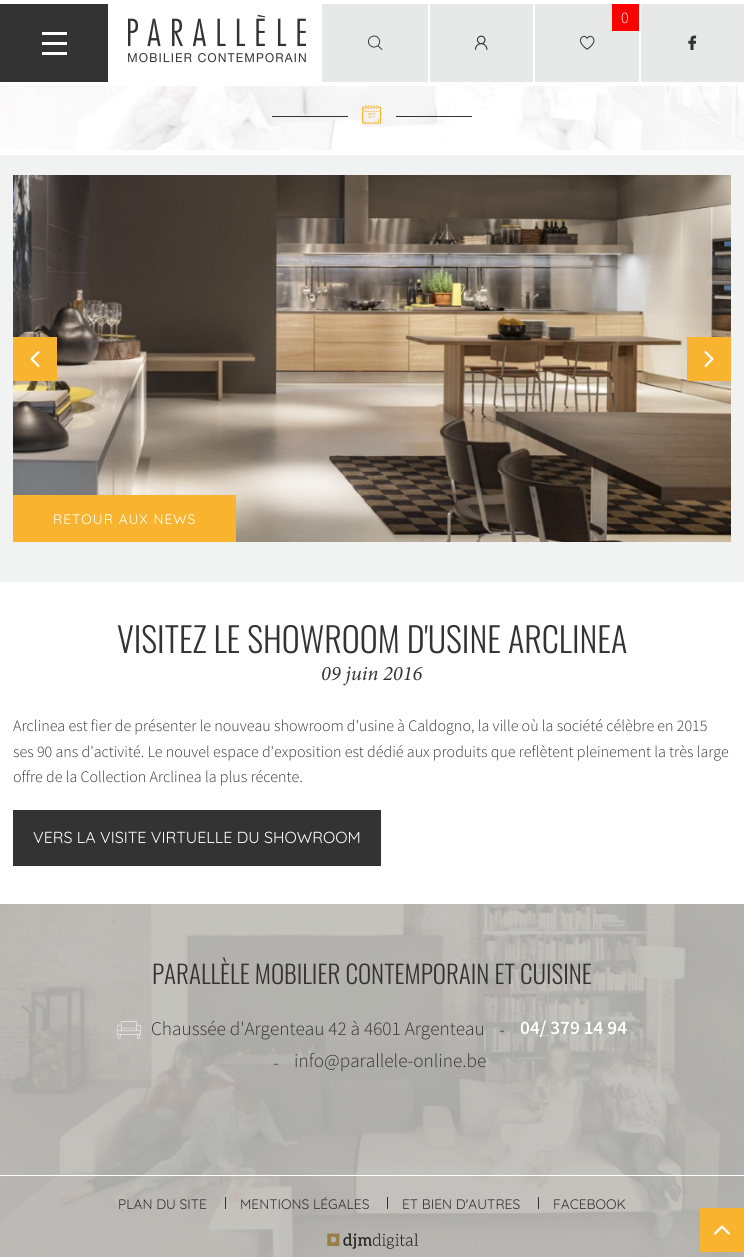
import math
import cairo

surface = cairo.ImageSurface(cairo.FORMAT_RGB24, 744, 1257)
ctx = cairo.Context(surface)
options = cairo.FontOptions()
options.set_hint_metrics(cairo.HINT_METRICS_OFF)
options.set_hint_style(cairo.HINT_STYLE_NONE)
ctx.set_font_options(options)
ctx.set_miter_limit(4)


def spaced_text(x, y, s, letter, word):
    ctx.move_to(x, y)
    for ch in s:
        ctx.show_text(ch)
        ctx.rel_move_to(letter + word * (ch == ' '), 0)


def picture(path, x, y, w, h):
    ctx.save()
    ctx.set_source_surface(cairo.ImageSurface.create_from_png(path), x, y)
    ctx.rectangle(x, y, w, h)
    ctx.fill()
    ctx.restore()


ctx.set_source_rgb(1, 1, 1)
ctx.paint()
ctx.set_source_rgb(0.2, 0.2, 0.2)
ctx.rectangle(0, 4, 108, 78)
ctx.fill()
ctx.set_source_rgb(1, 1, 1)
ctx.rectangle(42, 42, 25, 3)
ctx.fill()
ctx.rectangle(42, 32, 25, 3)
ctx.fill()
ctx.rectangle(42, 52, 25, 3)
ctx.fill()
picture("img1.png", 128, 14, 178, 49)
ctx.set_source_rgb(0.906, 0.91, 0.91)
ctx.rectangle(322, 4, 106, 78)
ctx.fill()
picture("img2.png", 368, 35, 15, 15)
ctx.rectangle(430, 4, 103, 78)
ctx.fill()
picture("img3.png", 474, 35, 14, 15)
ctx.rectangle(535, 4, 104, 78)
ctx.fill()
picture("img4.png", 580, 35, 15, 15)
ctx.set_source_rgb(1, 0, 0)
ctx.rectangle(612, 4, 27, 27)
ctx.fill()
ctx.select_font_face("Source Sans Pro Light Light")
ctx.set_font_size(16)
ctx.set_source_rgb(1, 1, 1)
ctx.move_to(621, 23)
ctx.show_text("0")
ctx.set_source_rgb(0.906, 0.91, 0.91)
ctx.rectangle(641, 4, 103, 78)
ctx.fill()
picture("img5.png", 688, 35, 9, 15)
picture("img6.png", 0, 86, 744, 64)
ctx.set_source_rgb(0.2, 0.2, 0.2)
ctx.rectangle(272, 116, 76, 1)
ctx.fill()
picture("img7.png", 362, 105, 20, 19)
ctx.rectangle(396, 116, 76, 1)
ctx.fill()
ctx.set_source_rgb(0.945, 0.949, 0.949)
ctx.rectangle(0, 155, 744, 427)
ctx.fill()
picture("img8.png", 13, 175, 718, 367)
ctx.set_source_rgb(0.973, 0.706, 0.184)
ctx.rectangle(13, 337, 44, 44)
ctx.fill()
picture("img9.png", 30, 351, 10, 16)
ctx.rectangle(687, 337, 44, 44)
ctx.fill()
picture("img10.png", 704, 351, 10, 16)
ctx.rectangle(13, 495, 223, 47)
ctx.fill()
ctx.select_font_face("Quicksand")
ctx.set_font_size(13.75)
ctx.set_source_rgb(1, 1, 1)
spaced_text(53, 524, "RETOUR AUX NEWS", 1, 0)
ctx.select_font_face("Oswald Light")
ctx.set_font_size(34.25)
ctx.set_source_rgb(0.2, 0.2, 0.2)
ctx.move_to(117, 653)
ctx.show_text("VISITEZ LE SHOWROOM D'USINE ARCLINEA")
picture("img11.png", 322, 666, 101, 20)
ctx.select_font_face("Source Sans Pro Light Light")
ctx.set_font_size(16)
ctx.move_to(13, 731)
ctx.show_text("Arclinea est fier de présenter le nouveau showroom d'usine à Caldogno, la ville où la société célèbre en 2015")
ctx.move_to(13, 757)
ctx.show_text("ses 90 ans d'activité. Le nouvel espace d'exposition est dédié aux produits que reflètent pleinement la très large")
ctx.move_to(13, 782)
ctx.show_text("offre de la Collection Arclinea la plus récente.")
ctx.rectangle(13, 810, 368, 56)
ctx.fill()
ctx.select_font_face("Quicksand")
ctx.set_source_rgb(1, 1, 1)
ctx.move_to(33, 843)
ctx.show_text("VERS LA VISITE VIRTUELLE DU SHOWROOM")
ctx.set_source_rgb(0.737, 0.737, 0.722)
ctx.rectangle(0, 904, 744, 353)
ctx.fill()
picture("img12.png", 0, 904, 744, 353)
ctx.select_font_face("Oswald Light")
ctx.set_font_size(25.1)
ctx.set_source_rgb(0.2, 0.2, 0.2)
ctx.move_to(152, 984)
ctx.show_text("PARALLÈLE MOBILIER CONTEMPORAIN ET CUISINE")
picture("img13.png", 117, 1021, 24, 18)
ctx.select_font_face("Source Sans Pro Light Light")
ctx.set_font_size(19.25)
ctx.move_to(151, 1035)
ctx.show_text("Chaussée d'Argenteau 42 à 4601 Argenteau")
ctx.move_to(499, 1036)
ctx.show_text("-")
ctx.select_font_face("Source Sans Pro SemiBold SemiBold")
ctx.set_source_rgb(1, 1, 1)
ctx.move_to(520, 1034)
ctx.show_text("04/ 379 14 94")
ctx.select_font_face("Source Sans Pro Light Light")
ctx.set_source_rgb(0.2, 0.2, 0.2)
ctx.move_to(273, 1069)
ctx.show_text("-")
ctx.move_to(294, 1067)
ctx.show_text("info@parallele-online.be")
ctx.set_source_rgb(1, 1, 1)
ctx.rectangle(0, 1175, 744, 1)
ctx.fill()
ctx.select_font_face("Quicksand")
ctx.set_font_size(13.75)
ctx.set_source_rgb(0.2, 0.2, 0.2)
ctx.move_to(118, 1209)
ctx.show_text("PLAN DU SITE")
ctx.rectangle(225, 1197, 1, 12)
ctx.fill()
ctx.move_to(240, 1209)
ctx.show_text("MENTIONS LÉGALES")
ctx.rectangle(387, 1197, 1, 12)
ctx.fill()
ctx.move_to(402, 1209)
ctx.show_text("ET BIEN D'AUTRES")
ctx.rectangle(538, 1197, 1, 12)
ctx.fill()
ctx.move_to(553, 1209)
ctx.show_text("FACEBOOK")
picture("img14.png", 327, 1233, 91, 16)
ctx.set_source_rgb(0.973, 0.706, 0.184)
ctx.rectangle(700, 1208, 44, 44)
ctx.fill()
picture("img15.png", 714, 1225, 16, 10)
surface.write_to_png("page.png")
